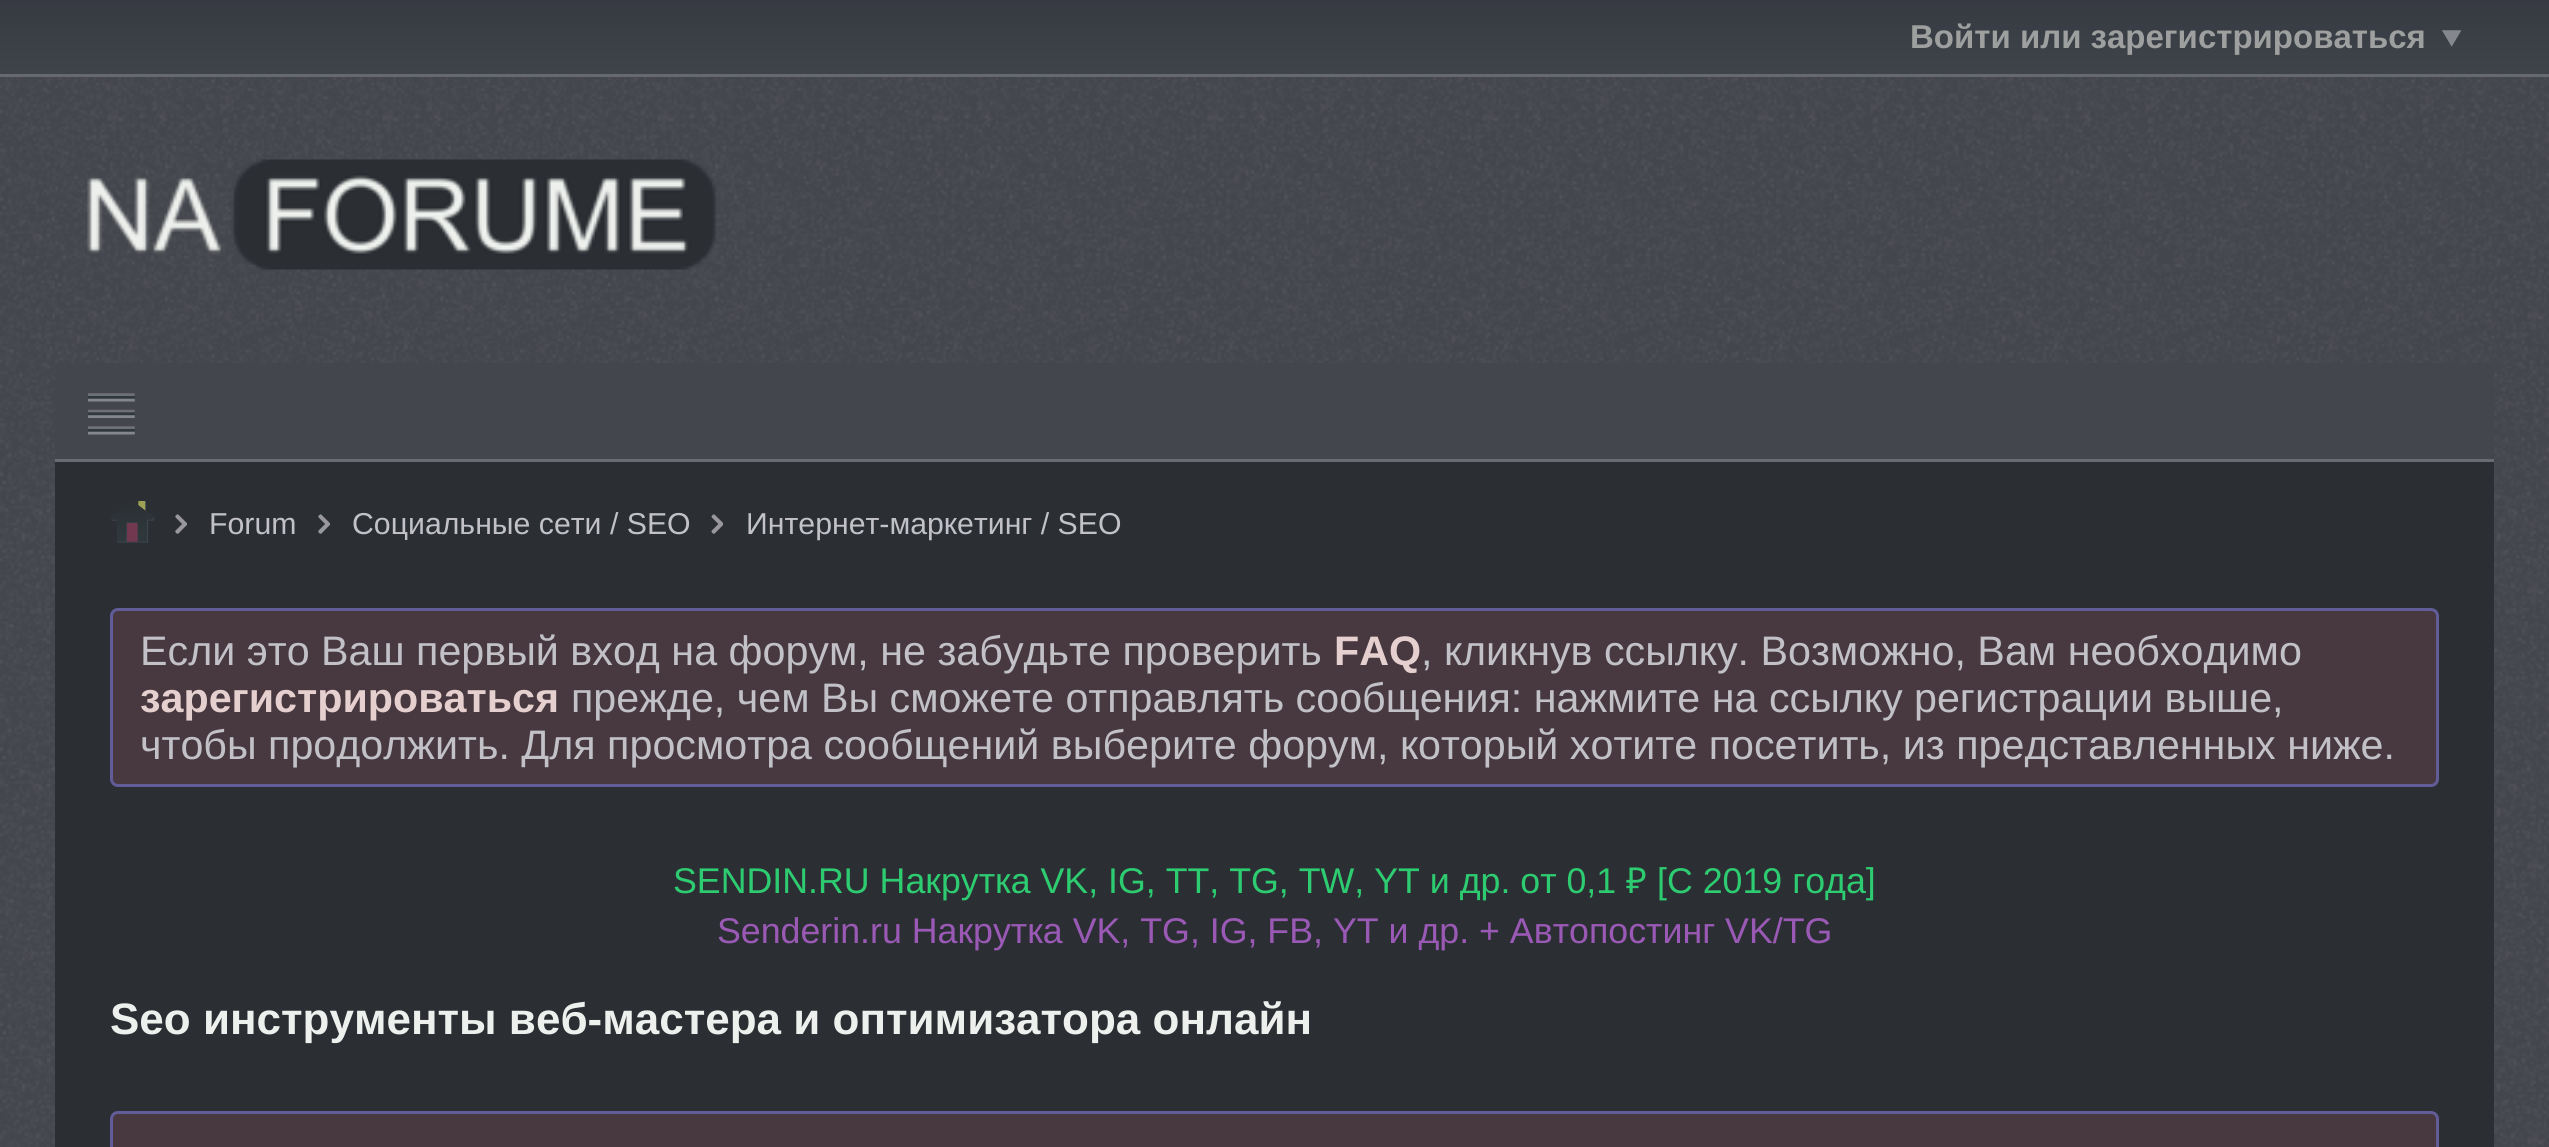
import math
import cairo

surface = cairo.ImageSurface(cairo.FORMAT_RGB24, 2549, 1147)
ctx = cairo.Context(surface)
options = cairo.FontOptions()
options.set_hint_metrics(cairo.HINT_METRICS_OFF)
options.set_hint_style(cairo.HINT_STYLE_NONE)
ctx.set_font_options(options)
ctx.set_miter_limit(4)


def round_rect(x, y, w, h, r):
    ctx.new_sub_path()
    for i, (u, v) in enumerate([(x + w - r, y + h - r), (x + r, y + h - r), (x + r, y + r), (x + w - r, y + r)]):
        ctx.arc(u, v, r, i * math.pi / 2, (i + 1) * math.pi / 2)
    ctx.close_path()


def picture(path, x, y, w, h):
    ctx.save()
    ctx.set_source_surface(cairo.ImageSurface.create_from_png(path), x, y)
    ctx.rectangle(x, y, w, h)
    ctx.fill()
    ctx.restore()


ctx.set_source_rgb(0.267, 0.275, 0.302)
ctx.paint()
picture("img1.png", 0, 77, 2549, 1070)
gradient = cairo.LinearGradient(1275, 0, 1275, 74)
gradient.add_color_stop_rgba(0, 0.212, 0.224, 0.255, 1)
gradient.add_color_stop_rgba(1, 0.247, 0.267, 0.294, 1)
ctx.set_source(gradient)
ctx.rectangle(0, 0, 2549, 74)
ctx.fill()
ctx.set_source_rgb(0.404, 0.412, 0.439)
ctx.rectangle(0, 74, 2549, 3)
ctx.fill()
ctx.select_font_face("Liberation Sans", cairo.FONT_SLANT_NORMAL, cairo.FONT_WEIGHT_BOLD)
ctx.set_font_size(33)
ctx.set_source_rgb(0.616, 0.627, 0.62)
ctx.move_to(1910, 48)
ctx.show_text("Войти или зарегистрироваться")
picture("img2.png", 2442, 30, 19, 17)
ctx.set_source_rgb(0.267, 0.275, 0.302)
ctx.rectangle(55, 77, 2439, 382)
ctx.fill()
picture("img3.png", 55, 77, 2439, 286)
picture("img4.png", 87, 159, 630, 111)
ctx.set_source_rgb(0.416, 0.416, 0.443)
ctx.rectangle(55, 459, 2439, 3)
ctx.fill()
picture("img5.png", 88, 393, 47, 42)
ctx.set_source_rgb(0.169, 0.184, 0.204)
ctx.rectangle(55, 462, 2439, 685)
ctx.fill()
picture("img6.png", 111, 501, 43, 42)
picture("img7.png", 175, 514, 12, 20)
ctx.select_font_face("Liberation Sans")
ctx.set_font_size(30.25)
ctx.set_source_rgb(0.757, 0.757, 0.78)
ctx.move_to(209, 534)
ctx.show_text("Forum")
picture("img7.png", 318, 514, 12, 20)
ctx.move_to(352, 534)
ctx.show_text("Социальные сети / SEO")
picture("img8.png", 711, 514, 12, 20)
ctx.move_to(746, 534)
ctx.show_text("Интернет-маркетинг / SEO")
ctx.set_source_rgb(0.278, 0.224, 0.247)
round_rect(111.5, 609.5, 2326, 176, 6.5)
ctx.fill_preserve()
ctx.set_source_rgb(0.384, 0.361, 0.596)
ctx.set_line_width(3)
ctx.stroke()
ctx.set_font_size(41.25)
ctx.set_source_rgb(0.757, 0.757, 0.78)
ctx.move_to(140, 665)
ctx.show_text("Если это Ваш первый вход на форум, не забудьте проверить")
ctx.select_font_face("Liberation Sans", cairo.FONT_SLANT_NORMAL, cairo.FONT_WEIGHT_BOLD)
ctx.set_source_rgb(0.902, 0.812, 0.812)
ctx.move_to(1334, 665)
ctx.show_text("FAQ")
ctx.select_font_face("Liberation Sans")
ctx.set_source_rgb(0.757, 0.757, 0.78)
ctx.move_to(1421, 665)
ctx.show_text(", кликнув ссылку. Возможно, Вам необходимо")
ctx.select_font_face("Liberation Sans", cairo.FONT_SLANT_NORMAL, cairo.FONT_WEIGHT_BOLD)
ctx.set_source_rgb(0.902, 0.812, 0.812)
ctx.move_to(140, 712)
ctx.show_text("зарегистрироваться")
ctx.select_font_face("Liberation Sans")
ctx.set_source_rgb(0.757, 0.757, 0.78)
ctx.move_to(571, 712)
ctx.show_text("прежде, чем Вы сможете отправлять сообщения: нажмите на ссылку регистрации выше,")
ctx.move_to(140, 759)
ctx.show_text("чтобы продолжить. Для просмотра сообщений выберите форум, который хотите посетить, из представленных ниже.")
ctx.set_font_size(35.75)
ctx.set_source_rgb(0.18, 0.8, 0.443)
ctx.move_to(673, 893)
ctx.show_text("SENDIN.RU Накрутка VK, IG, TT, TG, TW, YT и др. от 0,1")
ctx.select_font_face("Noto Sans")
ctx.move_to(1626, 893)
ctx.show_text("₽")
ctx.select_font_face("Liberation Sans")
ctx.move_to(1657, 893)
ctx.show_text("[С 2019 года]")
ctx.set_source_rgb(0.608, 0.349, 0.714)
ctx.move_to(717, 943)
ctx.show_text("Senderin.ru Накрутка VK, TG, IG, FB, YT и др. + Автопостинг VK/TG")
ctx.select_font_face("Liberation Sans", cairo.FONT_SLANT_NORMAL, cairo.FONT_WEIGHT_BOLD)
ctx.set_font_size(44)
ctx.set_source_rgb(0.929, 0.941, 0.925)
ctx.move_to(110, 1034)
ctx.show_text("Seo инструменты веб-мастера и оптимизатора онлайн")
ctx.set_source_rgb(0.278, 0.224, 0.247)
round_rect(111.5, 1112.5, 2326, 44, 6.5)
ctx.fill_preserve()
ctx.set_source_rgb(0.384, 0.361, 0.596)
ctx.stroke()
surface.write_to_png("page.png")
